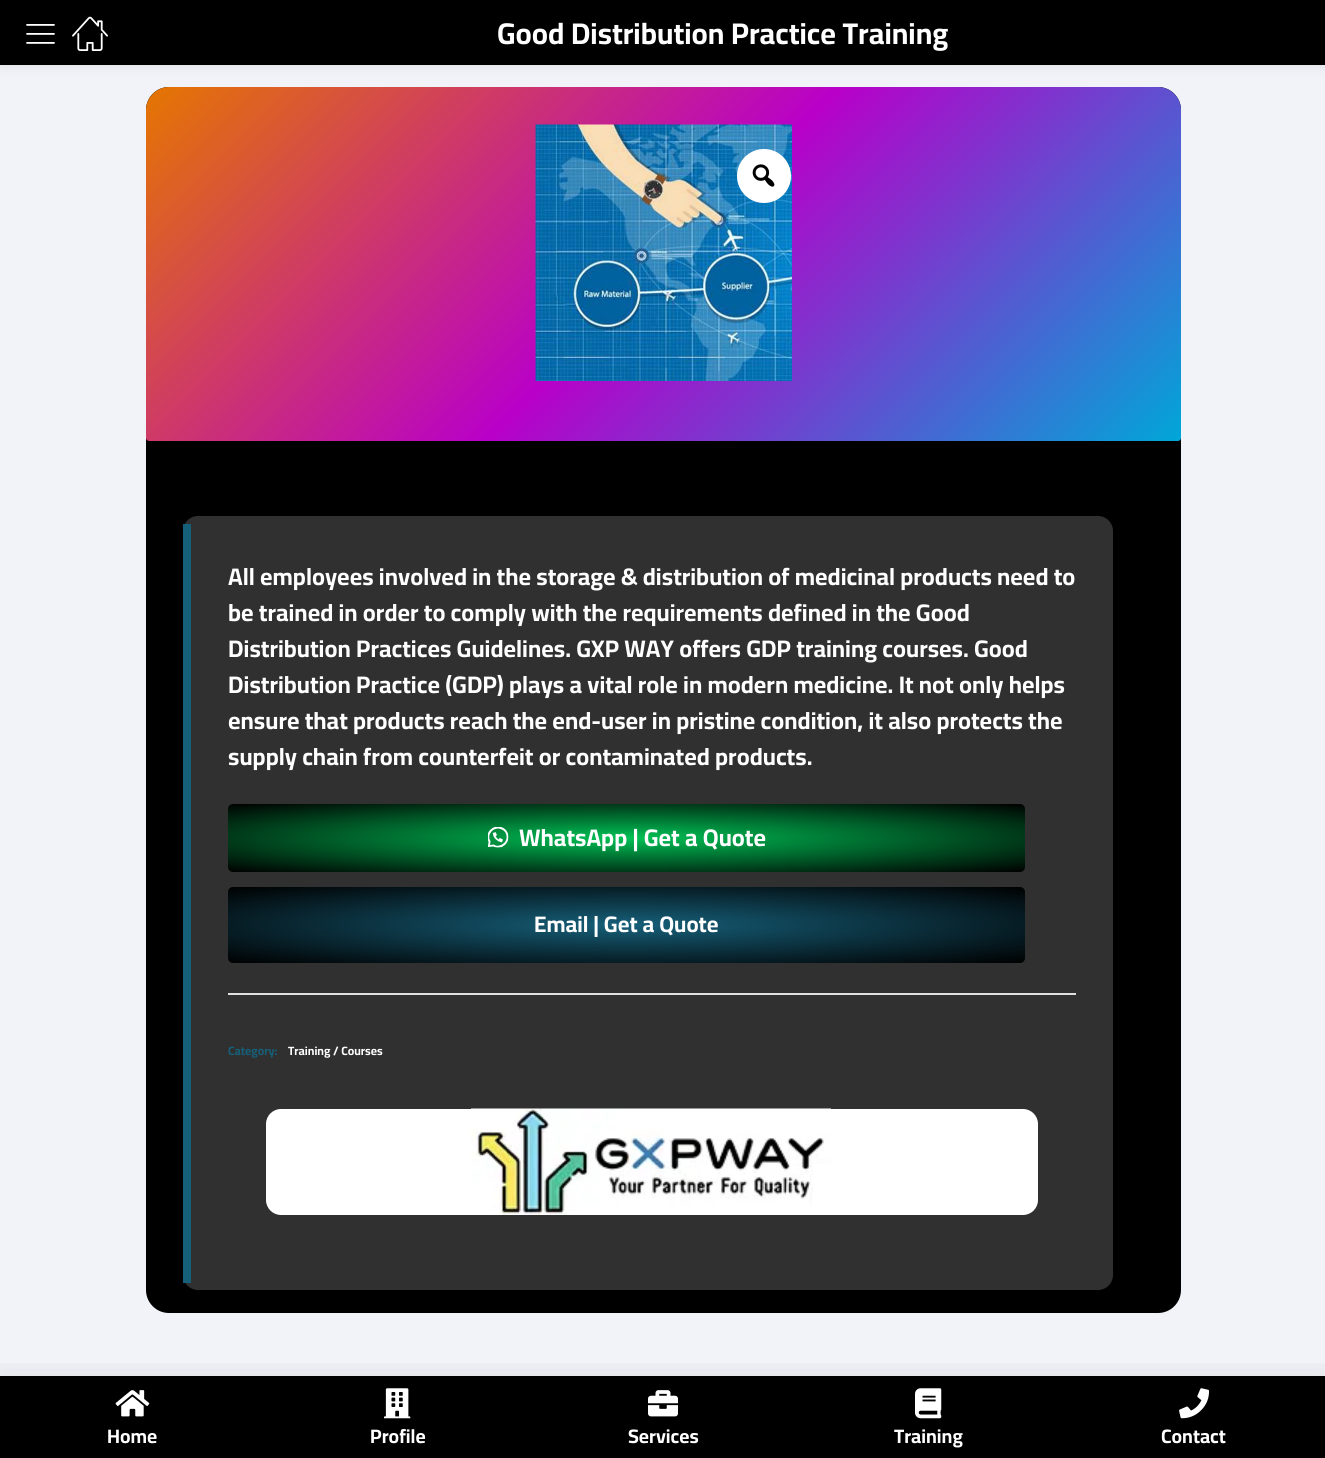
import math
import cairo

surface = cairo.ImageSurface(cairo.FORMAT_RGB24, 1325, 1458)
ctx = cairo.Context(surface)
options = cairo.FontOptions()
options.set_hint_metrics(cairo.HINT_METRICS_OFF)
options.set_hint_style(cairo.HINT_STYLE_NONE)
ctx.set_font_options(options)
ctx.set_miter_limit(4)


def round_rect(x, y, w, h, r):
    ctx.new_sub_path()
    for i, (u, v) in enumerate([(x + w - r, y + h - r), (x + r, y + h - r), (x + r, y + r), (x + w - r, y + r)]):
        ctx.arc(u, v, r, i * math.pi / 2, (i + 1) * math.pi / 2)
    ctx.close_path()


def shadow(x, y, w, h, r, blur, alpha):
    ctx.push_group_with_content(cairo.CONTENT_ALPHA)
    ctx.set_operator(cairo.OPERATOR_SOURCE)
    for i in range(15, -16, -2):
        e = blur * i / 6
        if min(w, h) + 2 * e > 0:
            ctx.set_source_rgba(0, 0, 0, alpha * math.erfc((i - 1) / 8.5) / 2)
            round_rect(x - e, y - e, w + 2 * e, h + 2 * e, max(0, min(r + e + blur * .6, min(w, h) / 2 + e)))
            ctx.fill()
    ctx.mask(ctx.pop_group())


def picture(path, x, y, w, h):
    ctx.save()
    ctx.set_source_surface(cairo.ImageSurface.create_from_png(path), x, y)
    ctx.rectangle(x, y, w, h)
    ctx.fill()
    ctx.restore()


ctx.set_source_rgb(0.949, 0.953, 0.969)
ctx.paint()
ctx.set_source_rgb(0, 0, 0)
shadow(0, 0, 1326, 65, 0, 6, 0.1)
ctx.set_source_rgb(0, 0, 0)
ctx.rectangle(0, 0, 1325, 65)
ctx.fill()
picture("img1.png", 26, 24, 29, 20)
picture("img2.png", 72, 16, 36, 35)
ctx.select_font_face("Cairo", cairo.FONT_SLANT_NORMAL, cairo.FONT_WEIGHT_BOLD)
ctx.set_font_size(30)
ctx.set_source_rgb(1, 1, 1)
ctx.move_to(497, 44)
ctx.show_text("Good Distribution Practice Training")
ctx.set_source_rgb(0, 0, 0)
round_rect(146, 87, 1035, 1226, 23)
ctx.fill()
gradient = cairo.LinearGradient(1010, 611, 316, -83)
gradient.add_color_stop_rgba(0, 0, 0.651, 0.847, 1)
gradient.add_color_stop_rgba(0.5, 0.722, 0, 0.788, 1)
gradient.add_color_stop_rgba(1, 0.898, 0.463, 0, 1)
ctx.set_source(gradient)
ctx.new_path()
ctx.move_to(169, 87)
ctx.line_to(1158, 87)
ctx.curve_to(1170.5, 87, 1181, 97.5, 1181, 110)
ctx.line_to(1181, 438)
ctx.curve_to(1181, 439.5, 1179.5, 441, 1178, 441)
ctx.line_to(149, 441)
ctx.curve_to(147.5, 441, 146, 439.5, 146, 438)
ctx.line_to(146, 110)
ctx.curve_to(146, 97.5, 156.5, 87, 169, 87)
ctx.close_path()
ctx.fill()
picture("img3.png", 535, 124, 257, 257)
ctx.set_source_rgb(1, 1, 1)
ctx.arc(764, 176, 27, 0, 2 * math.pi)
ctx.fill()
picture("img4.png", 752, 164, 23, 23)
ctx.set_source_rgb(0.188, 0.188, 0.188)
round_rect(183, 516, 930, 774, 15)
ctx.fill()
ctx.set_source_rgb(0.086, 0.373, 0.475)
ctx.rectangle(183, 524, 8, 759)
ctx.fill()
ctx.set_font_size(24)
ctx.set_source_rgb(1, 1, 1)
ctx.move_to(228, 585)
ctx.show_text("All employees involved in the storage & distribution of medicinal products need to")
ctx.move_to(228, 621)
ctx.show_text("be trained in order to comply with the requirements defined in the Good")
ctx.move_to(228, 657)
ctx.show_text("Distribution Practices Guidelines. GXP WAY offers GDP training courses. Good")
ctx.move_to(228, 693)
ctx.show_text("Distribution Practice (GDP) plays a vital role in modern medicine. It not only helps")
ctx.move_to(228, 729)
ctx.show_text("ensure that products reach the end-user in pristine condition, it also protects the")
ctx.move_to(228, 765)
ctx.show_text("supply chain from counterfeit or contaminated products.")
gradient = cairo.RadialGradient(0, 0, 0, 0, 0, 1)
gradient.set_matrix(cairo.Matrix(1 / 563, 0, 0, 1 / 48, -1 * 626 / 563, -1 * 838 / 48))
gradient.add_color_stop_rgba(0, 0, 0.757, 0.333, 1)
gradient.add_color_stop_rgba(1, 0, 0, 0, 1)
ctx.set_source(gradient)
round_rect(228, 804, 797, 68, 5)
ctx.fill()
picture("img5.png", 488, 827, 21, 21)
ctx.set_source_rgb(1, 1, 1)
ctx.move_to(519, 846)
ctx.show_text("WhatsApp | Get a Quote")
gradient = cairo.RadialGradient(0, 0, 0, 0, 0, 1)
gradient.set_matrix(cairo.Matrix(1 / 563, 0, 0, 1 / 54, -1 * 626 / 563, -1 * 925 / 54))
gradient.add_color_stop_rgba(0, 0.086, 0.373, 0.475, 1)
gradient.add_color_stop_rgba(1, 0, 0, 0, 1)
ctx.set_source(gradient)
round_rect(228, 887, 797, 76, 5)
ctx.fill()
ctx.set_font_size(22.5)
ctx.set_source_rgb(1, 1, 1)
ctx.move_to(534, 932)
ctx.show_text("Email | Get a Quote")
ctx.set_source_rgb(0.878, 0.878, 0.878)
ctx.rectangle(228, 993, 848, 2)
ctx.fill()
ctx.set_font_size(12)
ctx.set_source_rgb(0.086, 0.373, 0.475)
ctx.move_to(228, 1055)
ctx.show_text("Category:")
ctx.set_source_rgb(1, 1, 1)
ctx.move_to(288, 1055)
ctx.show_text("Training / Courses")
round_rect(266, 1109, 772, 106, 15)
ctx.fill()
picture("img6.png", 471, 1108, 360, 107)
ctx.set_source_rgb(0, 0, 0)
ctx.rectangle(0, 1376, 1325, 82)
ctx.fill()
ctx.save()
ctx.rectangle(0, 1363, 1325, 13)
ctx.clip()
ctx.set_source_rgb(0, 0, 0)
shadow(0, 1376, 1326, 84, 0, 15, 0.1)
ctx.restore()
picture("img7.png", 115, 1390, 35, 27)
ctx.set_font_size(19.5)
ctx.set_source_rgb(1, 1, 1)
ctx.move_to(107, 1443)
ctx.show_text("Home")
picture("img8.png", 384, 1388, 27, 31)
ctx.move_to(370, 1443)
ctx.show_text("Profile")
picture("img9.png", 648, 1390, 30, 27)
ctx.move_to(628, 1443)
ctx.show_text("Services")
picture("img10.png", 915, 1388, 27, 31)
ctx.move_to(894, 1443)
ctx.show_text("Training")
picture("img11.png", 1179, 1388, 31, 31)
ctx.move_to(1161, 1443)
ctx.show_text("Contact")
surface.write_to_png("page.png")
